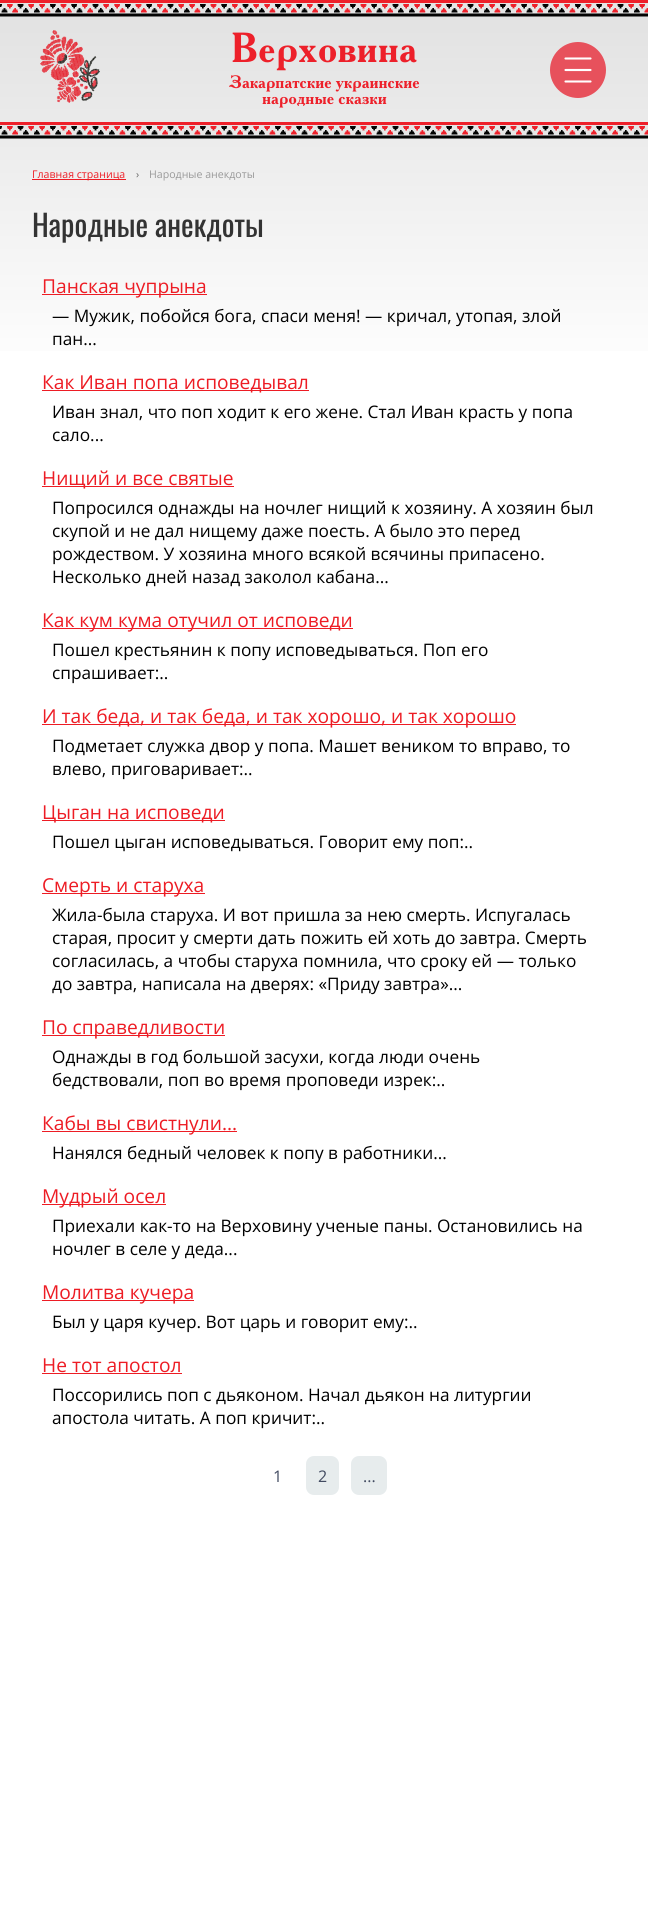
import math
import cairo

surface = cairo.ImageSurface(cairo.FORMAT_RGB24, 648, 1913)
ctx = cairo.Context(surface)
options = cairo.FontOptions()
options.set_hint_metrics(cairo.HINT_METRICS_OFF)
options.set_hint_style(cairo.HINT_STYLE_NONE)
ctx.set_font_options(options)
ctx.set_miter_limit(4)


def round_rect(x, y, w, h, r):
    ctx.new_sub_path()
    for i, (u, v) in enumerate([(x + w - r, y + h - r), (x + r, y + h - r), (x + r, y + r), (x + w - r, y + r)]):
        ctx.arc(u, v, r, i * math.pi / 2, (i + 1) * math.pi / 2)
    ctx.close_path()


def picture(path, x, y, w, h):
    ctx.save()
    ctx.set_source_surface(cairo.ImageSurface.create_from_png(path), x, y)
    ctx.rectangle(x, y, w, h)
    ctx.fill()
    ctx.restore()


ctx.set_source_rgb(1, 1, 1)
ctx.paint()
gradient = cairo.LinearGradient(324, 0, 324, 1913)
gradient.add_color_stop_rgba(0, 0.882, 0.882, 0.882, 1)
gradient.add_color_stop_rgba(0.2, 1, 1, 1, 1)
ctx.set_source(gradient)
ctx.rectangle(0, 17, 648, 334)
ctx.fill()
picture("img1.png", 0, 0, 648, 17)
picture("img2.png", 40, 30, 60, 73)
ctx.select_font_face("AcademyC", cairo.FONT_SLANT_NORMAL, cairo.FONT_WEIGHT_BOLD)
ctx.set_font_size(42)
ctx.set_source_rgb(0.929, 0.125, 0.165)
ctx.move_to(231, 62)
ctx.show_text("Верховина")
ctx.set_font_size(18)
ctx.move_to(229, 88)
ctx.show_text("Закарпатские украинские")
ctx.move_to(262, 104)
ctx.show_text("народные сказки")
ctx.set_source_rgb(0.906, 0.318, 0.361)
ctx.new_path()
ctx.arc(578, 70, 28, 0, 2 * math.pi)
ctx.fill()
ctx.new_path()
ctx.move_to(565.5, 58.5)
ctx.line_to(590.5, 58.5)
ctx.move_to(565.5, 70)
ctx.line_to(590.5, 70)
ctx.move_to(565.5, 81.5)
ctx.line_to(590.5, 81.5)
ctx.set_source_rgb(1, 1, 1)
ctx.set_line_width(2.1)
ctx.set_line_cap(cairo.LINE_CAP_ROUND)
ctx.stroke()
picture("img1.png", 0, 122, 648, 17)
ctx.set_source_rgb(0.929, 0.11, 0.141)
ctx.rectangle(32, 179, 94, 1)
ctx.fill()
ctx.select_font_face("Open Sans")
ctx.set_font_size(10.6)
ctx.move_to(32, 178)
ctx.show_text("Главная страница")
ctx.set_source_rgb(0.4, 0.4, 0.4)
ctx.move_to(136, 178)
ctx.show_text("›")
ctx.set_source_rgb(0.6, 0.6, 0.6)
ctx.move_to(149, 178)
ctx.show_text("Народные анекдоты")
ctx.select_font_face("Oswald")
ctx.set_font_size(30)
ctx.set_source_rgb(0.2, 0.2, 0.2)
ctx.move_to(32, 237)
ctx.show_text("Народные анекдоты")
ctx.set_source_rgb(0.929, 0.11, 0.141)
ctx.rectangle(42, 294, 165, 1)
ctx.fill()
ctx.select_font_face("Open Sans")
ctx.set_font_size(19.2)
ctx.move_to(42, 293)
ctx.show_text("Панская чупрына")
ctx.set_font_size(17.25)
ctx.set_source_rgb(0, 0, 0)
ctx.move_to(52, 322)
ctx.show_text("— Мужик, побойся бога, спаси меня! — кричал, утопая, злой")
ctx.move_to(52, 345)
ctx.show_text("пан...")
ctx.set_source_rgb(0.929, 0.11, 0.141)
ctx.rectangle(42, 390, 267, 1)
ctx.fill()
ctx.set_font_size(19.2)
ctx.move_to(42, 389)
ctx.show_text("Как Иван попа исповедывал")
ctx.set_font_size(17.25)
ctx.set_source_rgb(0, 0, 0)
ctx.move_to(52, 418)
ctx.show_text("Иван знал, что поп ходит к его жене. Стал Иван красть у попа")
ctx.move_to(52, 441)
ctx.show_text("сало...")
ctx.set_source_rgb(0.929, 0.11, 0.141)
ctx.rectangle(42, 486, 192, 1)
ctx.fill()
ctx.set_font_size(19.2)
ctx.move_to(42, 485)
ctx.show_text("Нищий и все святые")
ctx.set_font_size(17.25)
ctx.set_source_rgb(0, 0, 0)
ctx.move_to(52, 514)
ctx.show_text("Попросился однажды на ночлег нищий к хозяину. А хозяин был")
ctx.move_to(52, 537)
ctx.show_text("скупой и не дал нищему даже поесть. А было это перед")
ctx.move_to(52, 560)
ctx.show_text("рождеством. У хозяина много всякой всячины припасено.")
ctx.move_to(52, 583)
ctx.show_text("Несколько дней назад заколол кабана...")
ctx.set_source_rgb(0.929, 0.11, 0.141)
ctx.rectangle(42, 628, 311, 1)
ctx.fill()
ctx.set_font_size(19.2)
ctx.move_to(42, 627)
ctx.show_text("Как кум кума отучил от исповеди")
ctx.set_font_size(17.25)
ctx.set_source_rgb(0, 0, 0)
ctx.move_to(52, 656)
ctx.show_text("Пошел крестьянин к попу исповедываться. Поп его")
ctx.move_to(52, 679)
ctx.show_text("спрашивает:..")
ctx.set_source_rgb(0.929, 0.11, 0.141)
ctx.rectangle(42, 724, 474, 1)
ctx.fill()
ctx.set_font_size(19.2)
ctx.move_to(42, 723)
ctx.show_text("И так беда, и так беда, и так хорошо, и так хорошо")
ctx.set_font_size(17.25)
ctx.set_source_rgb(0, 0, 0)
ctx.move_to(52, 752)
ctx.show_text("Подметает служка двор у попа. Машет веником то вправо, то")
ctx.move_to(52, 775)
ctx.show_text("влево, приговаривает:..")
ctx.set_source_rgb(0.929, 0.11, 0.141)
ctx.rectangle(42, 820, 183, 1)
ctx.fill()
ctx.set_font_size(19.2)
ctx.move_to(42, 819)
ctx.show_text("Цыган на исповеди")
ctx.set_font_size(17.25)
ctx.set_source_rgb(0, 0, 0)
ctx.move_to(52, 848)
ctx.show_text("Пошел цыган исповедываться. Говорит ему поп:..")
ctx.set_source_rgb(0.929, 0.11, 0.141)
ctx.rectangle(42, 893, 163, 1)
ctx.fill()
ctx.set_font_size(19.2)
ctx.move_to(42, 892)
ctx.show_text("Смерть и старуха")
ctx.set_font_size(17.25)
ctx.set_source_rgb(0, 0, 0)
ctx.move_to(52, 921)
ctx.show_text("Жила-была старуха. И вот пришла за нею смерть. Испугалась")
ctx.move_to(52, 944)
ctx.show_text("старая, просит у смерти дать пожить ей хоть до завтра. Смерть")
ctx.move_to(52, 967)
ctx.show_text("согласилась, а чтобы старуха помнила, что сроку ей — только")
ctx.move_to(52, 990)
ctx.show_text("до завтра, написала на дверях: «Приду завтра»...")
ctx.set_source_rgb(0.929, 0.11, 0.141)
ctx.rectangle(42, 1035, 183, 1)
ctx.fill()
ctx.set_font_size(19.2)
ctx.move_to(42, 1034)
ctx.show_text("По справедливости")
ctx.set_font_size(17.25)
ctx.set_source_rgb(0, 0, 0)
ctx.move_to(52, 1063)
ctx.show_text("Однажды в год большой засухи, когда люди очень")
ctx.move_to(52, 1086)
ctx.show_text("бедствовали, поп во время проповеди изрек:..")
ctx.set_source_rgb(0.929, 0.11, 0.141)
ctx.rectangle(42, 1131, 195, 1)
ctx.fill()
ctx.set_font_size(19.2)
ctx.move_to(42, 1130)
ctx.show_text("Кабы вы свистнули...")
ctx.set_font_size(17.25)
ctx.set_source_rgb(0, 0, 0)
ctx.move_to(52, 1159)
ctx.show_text("Нанялся бедный человек к попу в работники...")
ctx.set_source_rgb(0.929, 0.11, 0.141)
ctx.rectangle(42, 1204, 124, 1)
ctx.fill()
ctx.set_font_size(19.2)
ctx.move_to(42, 1203)
ctx.show_text("Мудрый осел")
ctx.set_font_size(17.25)
ctx.set_source_rgb(0, 0, 0)
ctx.move_to(52, 1232)
ctx.show_text("Приехали как-то на Верховину ученые паны. Остановились на")
ctx.move_to(52, 1255)
ctx.show_text("ночлег в селе у деда...")
ctx.set_source_rgb(0.929, 0.11, 0.141)
ctx.rectangle(42, 1300, 152, 1)
ctx.fill()
ctx.set_font_size(19.2)
ctx.move_to(42, 1299)
ctx.show_text("Молитва кучера")
ctx.set_font_size(17.25)
ctx.set_source_rgb(0, 0, 0)
ctx.move_to(52, 1328)
ctx.show_text("Был у царя кучер. Вот царь и говорит ему:..")
ctx.set_font_size(19.2)
ctx.set_source_rgb(0.929, 0.11, 0.141)
ctx.move_to(42, 1372)
ctx.show_text("Не тот апостол")
ctx.rectangle(42, 1373, 140, 1)
ctx.fill()
ctx.set_font_size(17.25)
ctx.set_source_rgb(0, 0, 0)
ctx.move_to(52, 1401)
ctx.show_text("Поссорились поп с дьяконом. Начал дьякон на литургии")
ctx.move_to(52, 1424)
ctx.show_text("апостола читать. А поп кричит:..")
ctx.set_font_size(16)
ctx.set_source_rgb(0.259, 0.294, 0.38)
ctx.move_to(273, 1482)
ctx.show_text("1")
ctx.set_source_rgb(0.906, 0.925, 0.929)
round_rect(306, 1456, 33, 39, 8)
ctx.fill()
ctx.set_source_rgb(0.259, 0.294, 0.38)
ctx.move_to(318, 1482)
ctx.show_text("2")
ctx.set_source_rgb(0.906, 0.925, 0.929)
round_rect(351, 1456, 36, 39, 8)
ctx.fill()
ctx.set_source_rgb(0.259, 0.294, 0.38)
ctx.move_to(363, 1482)
ctx.show_text("...")
surface.write_to_png("page.png")
